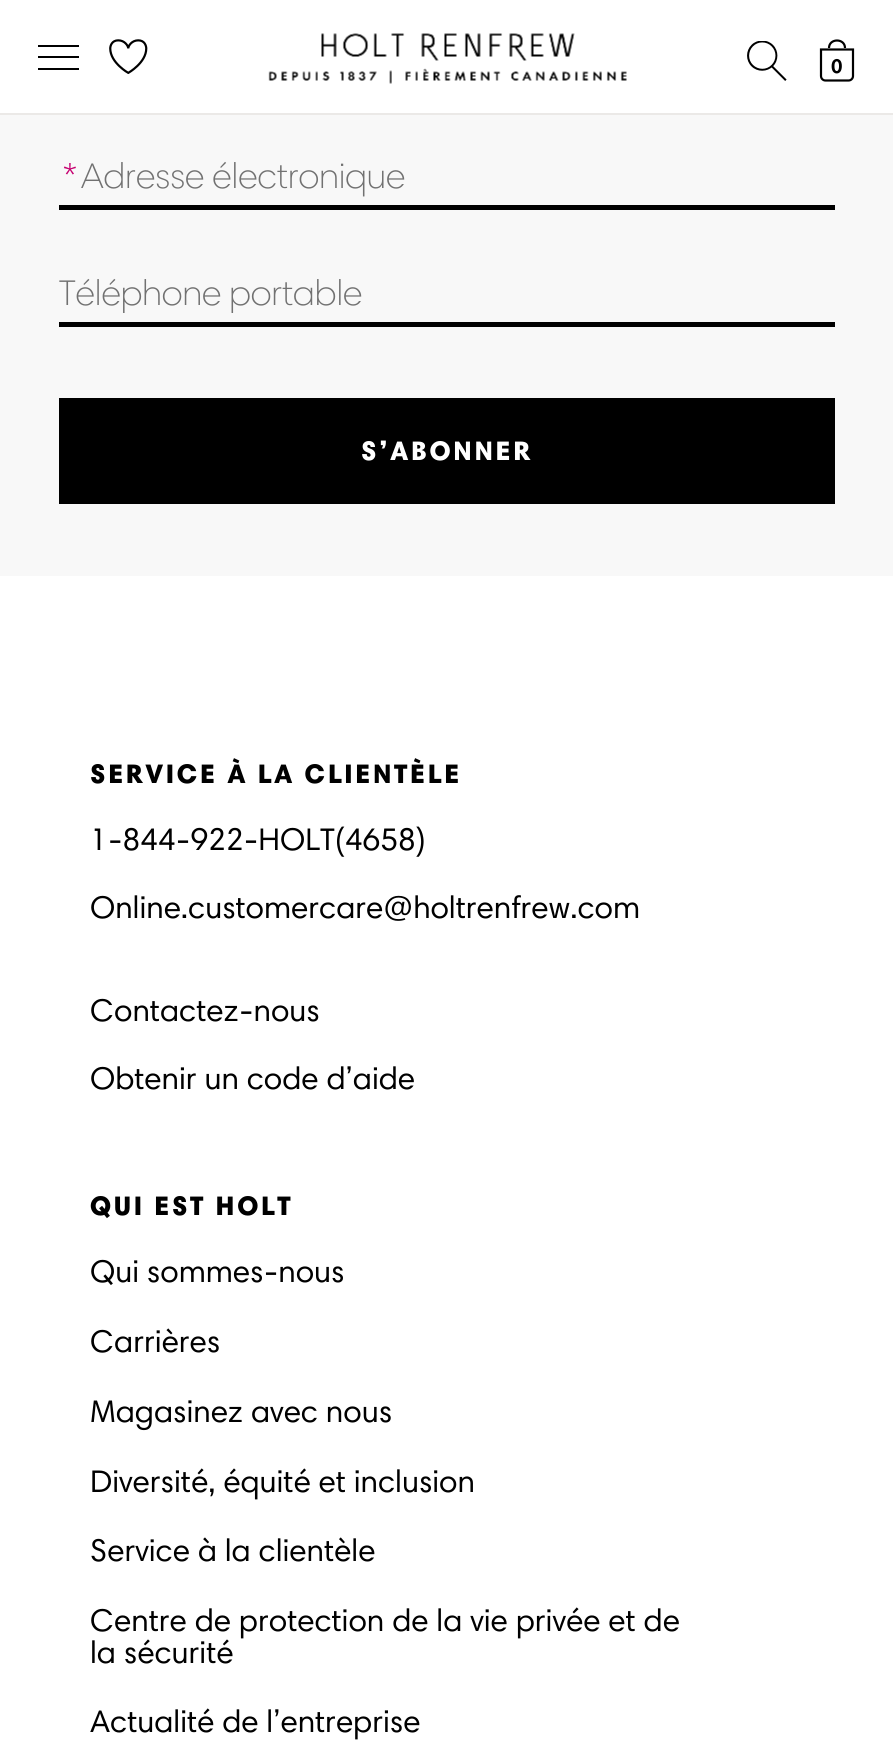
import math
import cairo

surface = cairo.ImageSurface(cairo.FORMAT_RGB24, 893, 1749)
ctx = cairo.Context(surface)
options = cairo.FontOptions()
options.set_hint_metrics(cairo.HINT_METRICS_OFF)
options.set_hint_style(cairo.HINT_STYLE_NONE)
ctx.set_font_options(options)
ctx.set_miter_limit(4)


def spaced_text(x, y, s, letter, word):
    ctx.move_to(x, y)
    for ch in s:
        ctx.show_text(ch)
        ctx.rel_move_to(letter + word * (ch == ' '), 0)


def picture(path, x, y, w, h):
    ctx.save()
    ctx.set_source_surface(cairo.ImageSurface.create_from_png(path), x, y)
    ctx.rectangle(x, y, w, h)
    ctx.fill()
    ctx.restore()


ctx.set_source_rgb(1, 1, 1)
ctx.paint()
ctx.set_source_rgb(0, 0, 0)
ctx.rectangle(38, 45, 41, 2)
ctx.fill()
ctx.rectangle(38, 56, 41, 2)
ctx.fill()
ctx.rectangle(38, 68, 41, 2)
ctx.fill()
picture("img1.png", 268, 33, 359, 51)
picture("img2.png", 109, 39, 39, 35)
picture("img3.png", 747, 41, 40, 40)
ctx.new_path()
ctx.move_to(829, 48)
ctx.curve_to(829, 38, 845, 38, 845, 48)
ctx.move_to(848.5, 80.5)
ctx.line_to(825.5, 80.5)
ctx.curve_to(823, 80.5, 821, 78.5, 821, 76)
ctx.line_to(821, 49.5)
ctx.line_to(853, 49.5)
ctx.line_to(853, 76)
ctx.curve_to(853, 78.5, 851, 80.5, 848.5, 80.5)
ctx.close_path()
ctx.set_line_width(2.2)
ctx.stroke()
ctx.select_font_face("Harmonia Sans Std", cairo.FONT_SLANT_NORMAL, cairo.FONT_WEIGHT_BOLD)
ctx.set_font_size(20)
ctx.move_to(831, 73)
ctx.show_text("0")
ctx.set_source_rgb(0.918, 0.914, 0.906)
ctx.rectangle(0, 113, 893, 2)
ctx.fill()
ctx.set_source_rgb(0.969, 0.969, 0.969)
ctx.rectangle(0, 115, 893, 461)
ctx.fill()
ctx.select_font_face("Harmonia Sans Std Light")
ctx.set_font_size(36)
ctx.set_source_rgb(0.773, 0, 0.439)
ctx.move_to(63, 189)
ctx.show_text("*")
ctx.set_source_rgb(0, 0, 0)
ctx.rectangle(59, 205, 776, 5)
ctx.fill()
ctx.set_source_rgb(0.443, 0.443, 0.443)
ctx.move_to(81, 188)
ctx.show_text("Adresse électronique")
ctx.set_source_rgb(0, 0, 0)
ctx.rectangle(59, 322, 776, 5)
ctx.fill()
ctx.save()
ctx.rectangle(59, 270, 776, 43)
ctx.clip()
ctx.set_source_rgb(0.443, 0.443, 0.443)
ctx.move_to(59, 305)
ctx.show_text("Téléphone portable")
ctx.restore()
ctx.rectangle(59, 398, 776, 106)
ctx.fill()
ctx.select_font_face("Harmonia Sans Std Black")
ctx.set_font_size(27)
ctx.set_source_rgb(1, 1, 1)
spaced_text(361, 460, "S’ABONNER", 2.7, 0)
ctx.set_source_rgb(0, 0, 0)
spaced_text(90, 783, "SERVICE À LA CLIENTÈLE", 2.7, 0)
ctx.select_font_face("Harmonia Sans Std")
ctx.set_font_size(31.5)
ctx.move_to(90, 850)
ctx.show_text("1-844-922-HOLT(4658)")
ctx.move_to(90, 918)
ctx.show_text("Online.customercare@holtrenfrew.com")
ctx.move_to(90, 1021)
ctx.show_text("Contactez-nous")
ctx.move_to(90, 1089)
ctx.show_text("Obtenir un code d’aide")
ctx.select_font_face("Harmonia Sans Std Black")
ctx.set_font_size(27)
spaced_text(90, 1215, "QUI EST HOLT", 2.7, 0)
ctx.select_font_face("Harmonia Sans Std")
ctx.set_font_size(31.5)
ctx.move_to(90, 1282)
ctx.show_text("Qui sommes-nous")
ctx.move_to(90, 1352)
ctx.show_text("Carrières")
ctx.move_to(90, 1422)
ctx.show_text("Magasinez avec nous")
ctx.move_to(90, 1492)
ctx.show_text("Diversité, équité et inclusion")
ctx.move_to(90, 1561)
ctx.show_text("Service à la clientèle")
ctx.move_to(90, 1631)
ctx.show_text("Centre de protection de la vie privée et de")
ctx.move_to(90, 1663)
ctx.show_text("la sécurité")
ctx.move_to(90, 1732)
ctx.show_text("Actualité de l’entreprise")
surface.write_to_png("page.png")
